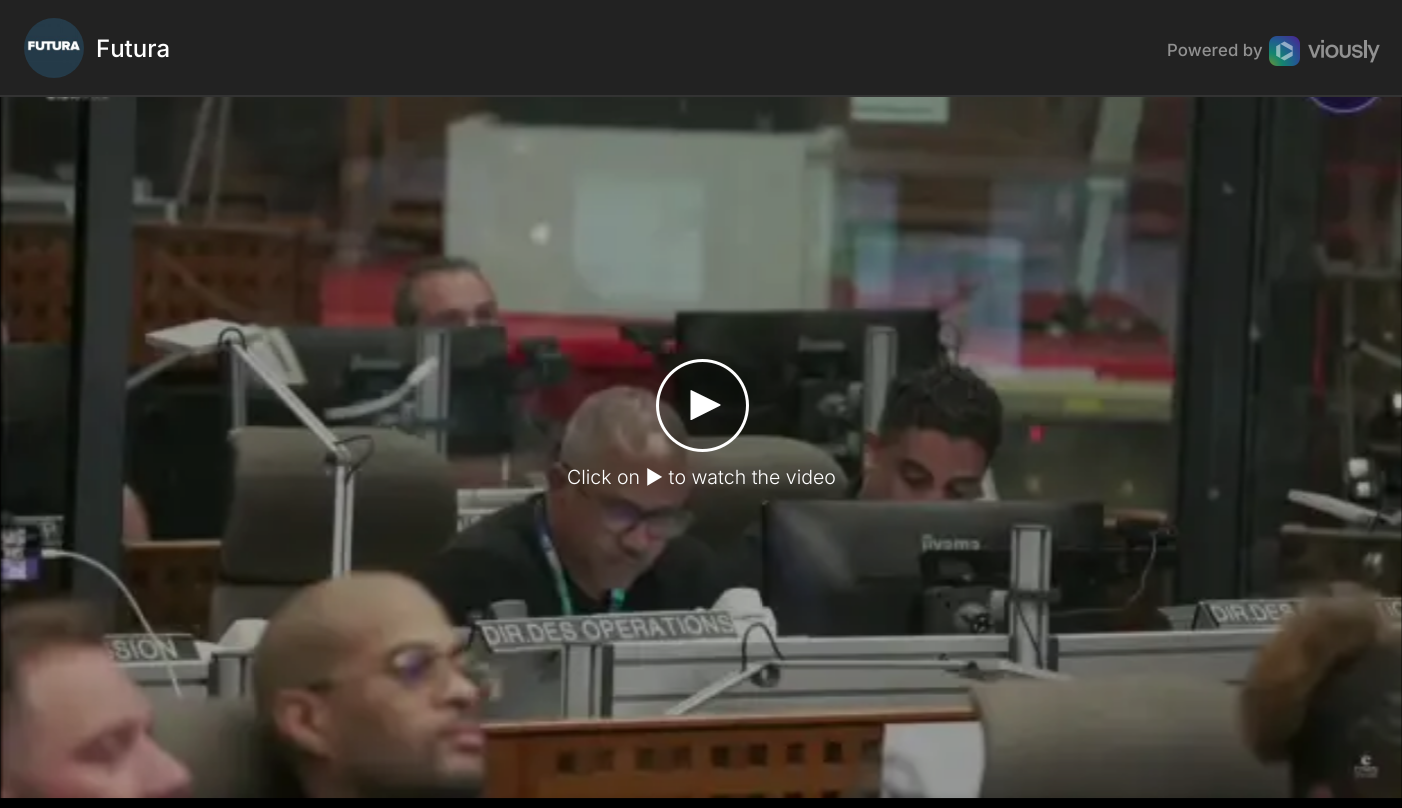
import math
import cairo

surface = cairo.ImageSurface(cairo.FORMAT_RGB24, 1402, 808)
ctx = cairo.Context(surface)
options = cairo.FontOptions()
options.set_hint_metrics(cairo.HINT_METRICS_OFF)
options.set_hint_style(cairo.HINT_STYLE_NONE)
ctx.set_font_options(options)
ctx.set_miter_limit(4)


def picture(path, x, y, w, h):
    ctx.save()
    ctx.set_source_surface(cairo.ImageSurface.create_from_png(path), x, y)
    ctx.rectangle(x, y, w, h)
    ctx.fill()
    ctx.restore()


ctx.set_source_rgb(0, 0, 0)
ctx.paint()
ctx.set_source_rgb(0.133, 0.133, 0.133)
ctx.rectangle(0, 0, 1402, 95)
ctx.fill()
ctx.set_source_rgb(0.2, 0.2, 0.2)
ctx.rectangle(0, 95, 1402, 2)
ctx.fill()
picture("img1.png", 24, 18, 60, 60)
ctx.select_font_face("Inter Medium")
ctx.set_font_size(24)
ctx.set_source_rgb(1, 1, 1)
ctx.move_to(96, 57)
ctx.show_text("Futura")
ctx.set_font_size(16.75)
ctx.set_source_rgb(0.569, 0.569, 0.569)
ctx.move_to(1167, 56)
ctx.show_text("Powered by")
picture("img2.png", 1269, 36, 111, 30)
picture("img3.png", 0, 97, 1402, 702)
ctx.set_source_rgba(0, 0, 0, 0.25)
ctx.arc(702.5, 405.5, 45, 0, 2 * math.pi)
ctx.fill_preserve()
ctx.set_source_rgb(1, 1, 1)
ctx.set_line_width(3)
ctx.stroke()
ctx.new_path()
ctx.move_to(691.5, 420)
ctx.line_to(690.5, 420)
ctx.line_to(690.5, 390.5)
ctx.line_to(691, 390)
ctx.line_to(720.5, 404.5)
ctx.curve_to(720.5, 405, 720.5, 405, 720.5, 405.5)
ctx.close_path()
ctx.fill()
ctx.select_font_face("Inter Light")
ctx.set_font_size(19.5)
ctx.move_to(567, 484)
ctx.show_text("Click on ► to watch the video")
surface.write_to_png("page.png")
